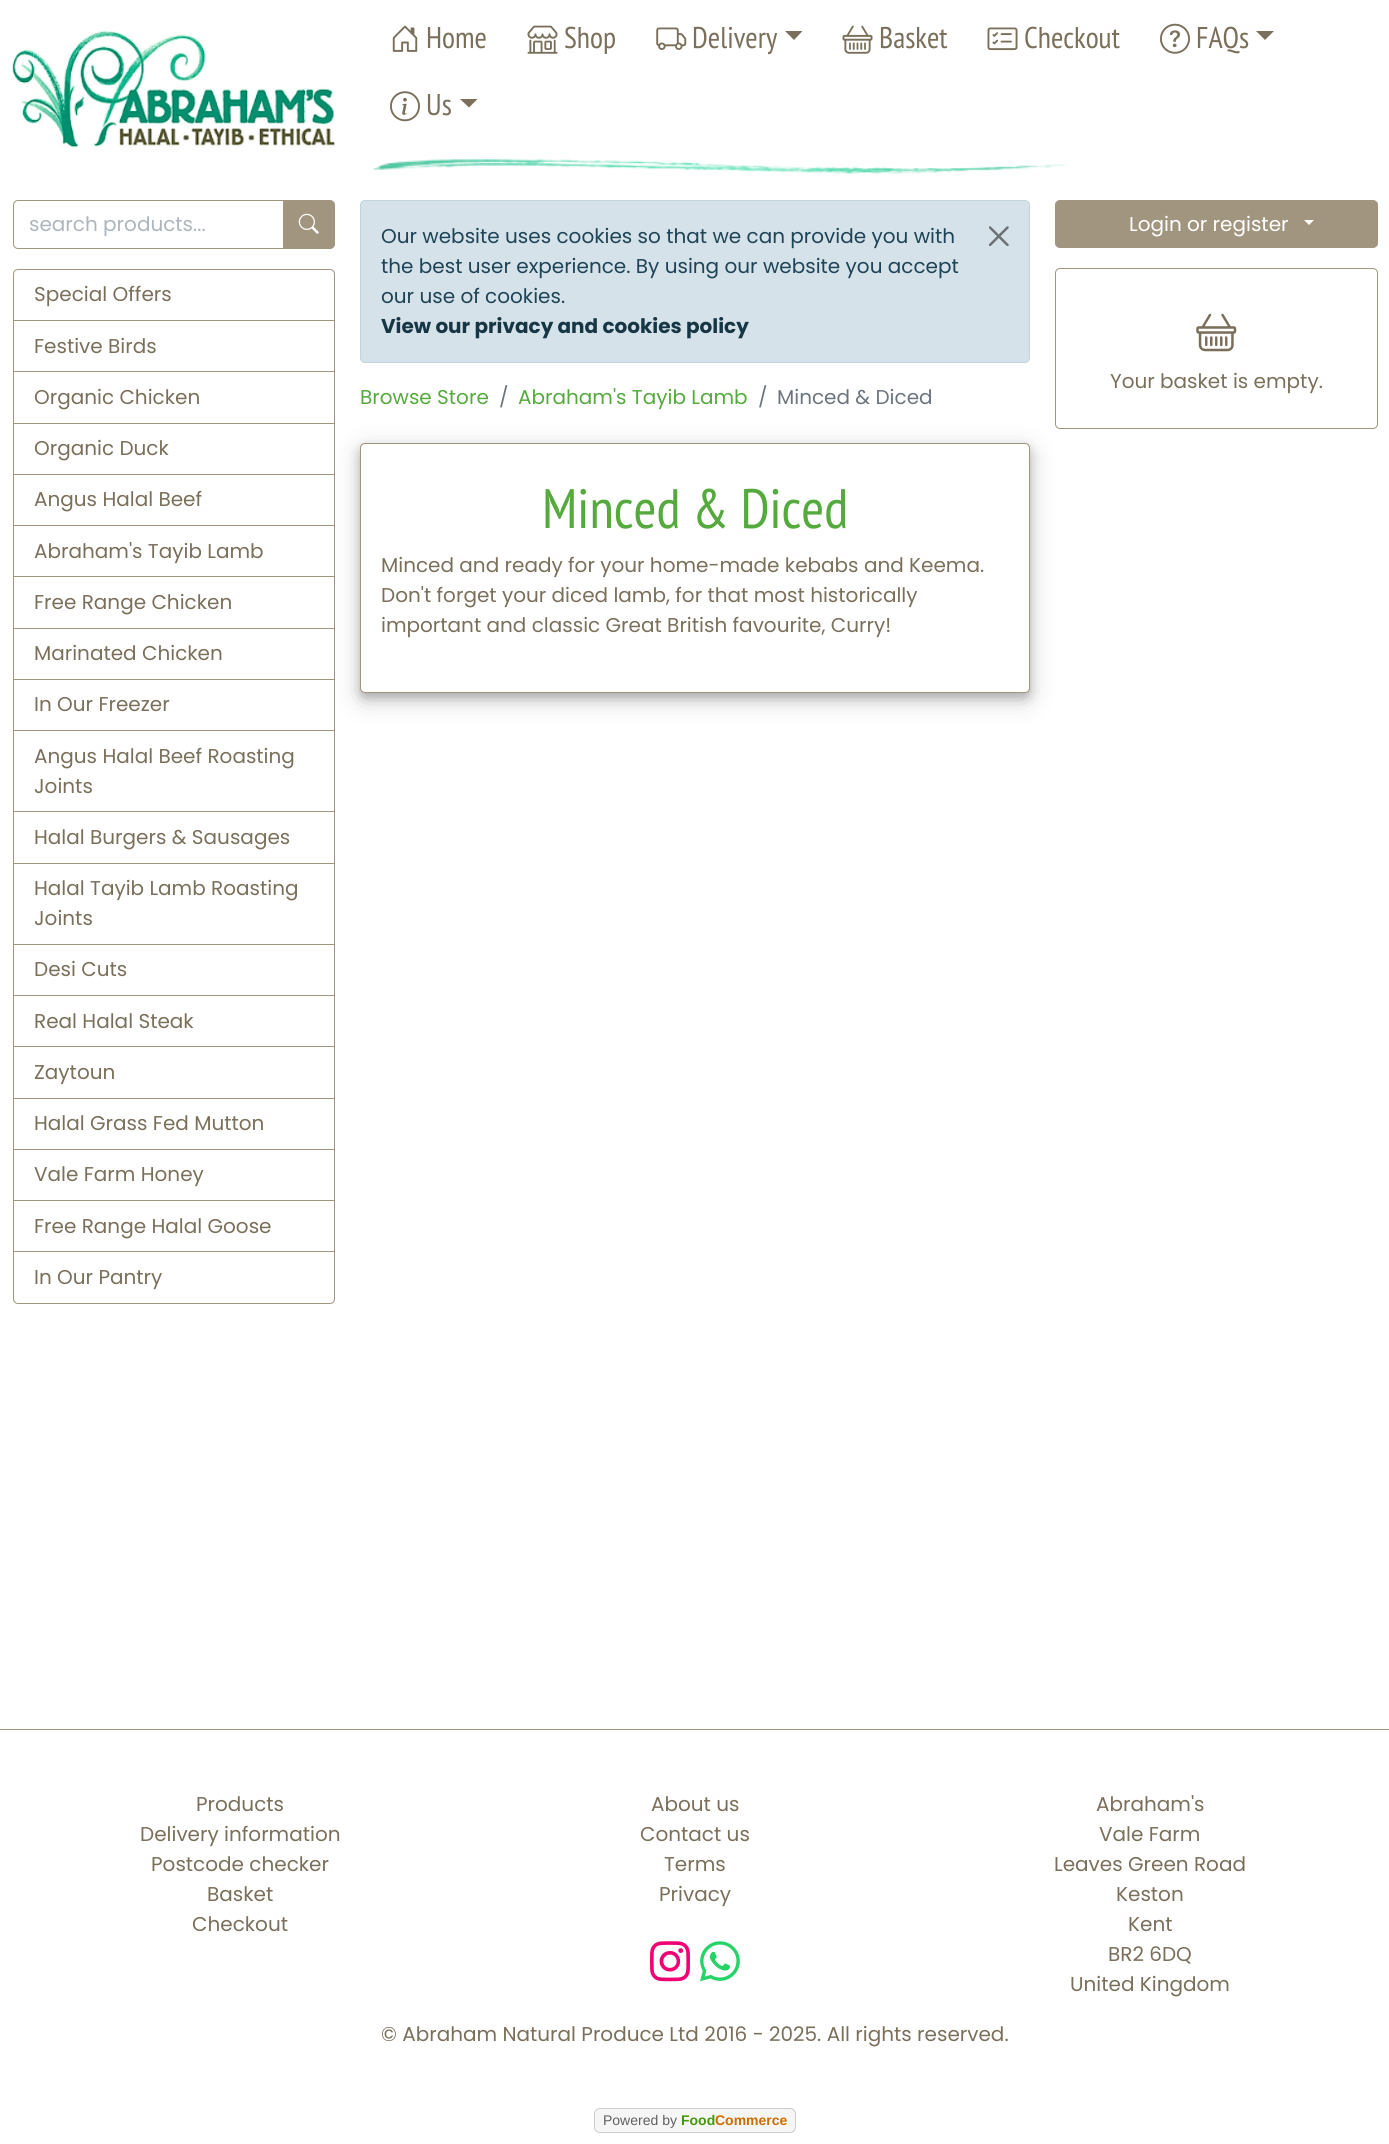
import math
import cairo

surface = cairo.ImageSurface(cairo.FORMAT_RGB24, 1389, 2144)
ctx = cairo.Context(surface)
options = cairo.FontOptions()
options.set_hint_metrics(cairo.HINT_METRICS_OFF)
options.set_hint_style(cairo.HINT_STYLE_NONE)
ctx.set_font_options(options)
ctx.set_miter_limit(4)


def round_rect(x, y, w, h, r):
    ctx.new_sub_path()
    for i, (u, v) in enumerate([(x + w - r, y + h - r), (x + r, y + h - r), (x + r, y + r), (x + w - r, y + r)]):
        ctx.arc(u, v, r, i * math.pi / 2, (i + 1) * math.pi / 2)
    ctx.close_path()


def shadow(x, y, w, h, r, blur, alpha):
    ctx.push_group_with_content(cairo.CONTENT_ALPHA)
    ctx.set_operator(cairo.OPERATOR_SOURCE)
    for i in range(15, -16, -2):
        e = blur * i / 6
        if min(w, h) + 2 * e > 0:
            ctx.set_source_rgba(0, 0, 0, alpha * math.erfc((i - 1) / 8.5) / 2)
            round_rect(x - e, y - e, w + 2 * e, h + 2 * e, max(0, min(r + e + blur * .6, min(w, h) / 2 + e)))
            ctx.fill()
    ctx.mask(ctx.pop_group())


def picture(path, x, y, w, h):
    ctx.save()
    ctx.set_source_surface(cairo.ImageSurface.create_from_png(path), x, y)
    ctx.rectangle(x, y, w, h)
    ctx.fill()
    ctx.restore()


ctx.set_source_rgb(1, 1, 1)
ctx.paint()
picture("img1.png", 12, 30, 323, 118)
picture("img2.png", 392, 25, 26, 27)
ctx.select_font_face("PT Sans Narrow")
ctx.set_font_size(30)
ctx.set_source_rgb(0.478, 0.435, 0.353)
ctx.move_to(426, 48)
ctx.show_text("Home")
picture("img3.png", 527, 25, 31, 29)
ctx.move_to(564, 48)
ctx.show_text("Shop")
picture("img4.png", 656, 27, 31, 23)
ctx.move_to(692, 48)
ctx.show_text("Delivery")
ctx.new_path()
ctx.move_to(785, 31)
ctx.line_to(802.5, 31)
ctx.line_to(794, 40)
ctx.close_path()
ctx.fill()
picture("img5.png", 842, 25, 31, 29)
ctx.move_to(879, 48)
ctx.show_text("Basket")
picture("img6.png", 987, 27, 31, 24)
ctx.move_to(1024, 48)
ctx.show_text("Checkout")
picture("img7.png", 1160, 23, 30, 31)
ctx.move_to(1196, 48)
ctx.show_text("FAQs")
ctx.new_path()
ctx.move_to(1256, 31)
ctx.line_to(1274, 31)
ctx.line_to(1265, 40)
ctx.close_path()
ctx.fill()
picture("img8.png", 390, 91, 30, 31)
ctx.move_to(426, 115)
ctx.show_text("Us")
ctx.new_path()
ctx.move_to(460, 99)
ctx.line_to(477.5, 99)
ctx.line_to(469, 107.5)
ctx.close_path()
ctx.fill()
picture("img9.png", 372, 159, 695, 15)
ctx.new_path()
ctx.move_to(18, 200.5)
ctx.line_to(283.5, 200.5)
ctx.line_to(283.5, 248.5)
ctx.line_to(18, 248.5)
ctx.curve_to(15.5, 248.5, 13.5, 246.5, 13.5, 244)
ctx.line_to(13.5, 205)
ctx.curve_to(13.5, 202.5, 15.5, 200.5, 18, 200.5)
ctx.close_path()
ctx.set_source_rgb(0.631, 0.584, 0.498)
ctx.set_line_width(1)
ctx.stroke()
ctx.select_font_face("Poppins")
ctx.set_font_size(20)
ctx.set_source_rgb(0.678, 0.71, 0.741)
ctx.move_to(29, 231)
ctx.show_text("search products...")
ctx.set_source_rgb(0.631, 0.584, 0.498)
ctx.new_path()
ctx.move_to(283.5, 200.5)
ctx.line_to(330, 200.5)
ctx.curve_to(332.5, 200.5, 334.5, 202.5, 334.5, 205)
ctx.line_to(334.5, 244)
ctx.curve_to(334.5, 246.5, 332.5, 248.5, 330, 248.5)
ctx.line_to(283.5, 248.5)
ctx.close_path()
ctx.fill_preserve()
ctx.stroke()
picture("img10.png", 298, 213, 21, 21)
round_rect(13.5, 269.5, 321, 1034, 4.5)
ctx.stroke()
ctx.rectangle(14, 320, 320, 1)
ctx.fill()
ctx.set_source_rgb(0.478, 0.435, 0.353)
ctx.move_to(34, 301)
ctx.show_text("Special Offers")
ctx.set_source_rgb(0.631, 0.584, 0.498)
ctx.rectangle(14, 371, 320, 1)
ctx.fill()
ctx.set_source_rgb(0.478, 0.435, 0.353)
ctx.move_to(34, 353)
ctx.show_text("Festive Birds")
ctx.set_source_rgb(0.631, 0.584, 0.498)
ctx.rectangle(14, 423, 320, 1)
ctx.fill()
ctx.set_source_rgb(0.478, 0.435, 0.353)
ctx.move_to(34, 404)
ctx.show_text("Organic Chicken")
ctx.set_source_rgb(0.631, 0.584, 0.498)
ctx.rectangle(14, 474, 320, 1)
ctx.fill()
ctx.set_source_rgb(0.478, 0.435, 0.353)
ctx.move_to(34, 455)
ctx.show_text("Organic Duck")
ctx.set_source_rgb(0.631, 0.584, 0.498)
ctx.rectangle(14, 525, 320, 1)
ctx.fill()
ctx.set_source_rgb(0.478, 0.435, 0.353)
ctx.move_to(34, 506)
ctx.show_text("Angus Halal Beef")
ctx.set_source_rgb(0.631, 0.584, 0.498)
ctx.rectangle(14, 576, 320, 1)
ctx.fill()
ctx.set_source_rgb(0.478, 0.435, 0.353)
ctx.move_to(34, 558)
ctx.show_text("Abraham's Tayib Lamb")
ctx.set_source_rgb(0.631, 0.584, 0.498)
ctx.rectangle(14, 628, 320, 1)
ctx.fill()
ctx.set_source_rgb(0.478, 0.435, 0.353)
ctx.move_to(34, 609)
ctx.show_text("Free Range Chicken")
ctx.set_source_rgb(0.631, 0.584, 0.498)
ctx.rectangle(14, 679, 320, 1)
ctx.fill()
ctx.set_source_rgb(0.478, 0.435, 0.353)
ctx.move_to(34, 660)
ctx.show_text("Marinated Chicken")
ctx.set_source_rgb(0.631, 0.584, 0.498)
ctx.rectangle(14, 730, 320, 1)
ctx.fill()
ctx.set_source_rgb(0.478, 0.435, 0.353)
ctx.move_to(34, 711)
ctx.show_text("In Our Freezer")
ctx.set_source_rgb(0.631, 0.584, 0.498)
ctx.rectangle(14, 811, 320, 1)
ctx.fill()
ctx.set_source_rgb(0.478, 0.435, 0.353)
ctx.move_to(34, 763)
ctx.show_text("Angus Halal Beef Roasting")
ctx.move_to(34, 793)
ctx.show_text("Joints")
ctx.set_source_rgb(0.631, 0.584, 0.498)
ctx.rectangle(14, 863, 320, 1)
ctx.fill()
ctx.set_source_rgb(0.478, 0.435, 0.353)
ctx.move_to(34, 844)
ctx.show_text("Halal Burgers & Sausages")
ctx.set_source_rgb(0.631, 0.584, 0.498)
ctx.rectangle(14, 944, 320, 1)
ctx.fill()
ctx.set_source_rgb(0.478, 0.435, 0.353)
ctx.move_to(34, 895)
ctx.show_text("Halal Tayib Lamb Roasting")
ctx.move_to(34, 925)
ctx.show_text("Joints")
ctx.set_source_rgb(0.631, 0.584, 0.498)
ctx.rectangle(14, 995, 320, 1)
ctx.fill()
ctx.set_source_rgb(0.478, 0.435, 0.353)
ctx.move_to(34, 976)
ctx.show_text("Desi Cuts")
ctx.set_source_rgb(0.631, 0.584, 0.498)
ctx.rectangle(14, 1046, 320, 1)
ctx.fill()
ctx.set_source_rgb(0.478, 0.435, 0.353)
ctx.move_to(34, 1028)
ctx.show_text("Real Halal Steak")
ctx.set_source_rgb(0.631, 0.584, 0.498)
ctx.rectangle(14, 1098, 320, 1)
ctx.fill()
ctx.set_source_rgb(0.478, 0.435, 0.353)
ctx.move_to(34, 1079)
ctx.show_text("Zaytoun")
ctx.set_source_rgb(0.631, 0.584, 0.498)
ctx.rectangle(14, 1149, 320, 1)
ctx.fill()
ctx.set_source_rgb(0.478, 0.435, 0.353)
ctx.move_to(34, 1130)
ctx.show_text("Halal Grass Fed Mutton")
ctx.set_source_rgb(0.631, 0.584, 0.498)
ctx.rectangle(14, 1200, 320, 1)
ctx.fill()
ctx.set_source_rgb(0.478, 0.435, 0.353)
ctx.move_to(34, 1181)
ctx.show_text("Vale Farm Honey")
ctx.set_source_rgb(0.631, 0.584, 0.498)
ctx.rectangle(14, 1251, 320, 1)
ctx.fill()
ctx.set_source_rgb(0.478, 0.435, 0.353)
ctx.move_to(34, 1233)
ctx.show_text("Free Range Halal Goose")
ctx.move_to(34, 1284)
ctx.show_text("In Our Pantry")
ctx.set_source_rgb(0.839, 0.886, 0.914)
round_rect(360.5, 200.5, 669, 162, 4.5)
ctx.fill_preserve()
ctx.set_source_rgb(0.757, 0.831, 0.867)
ctx.stroke()
ctx.set_source_rgb(0.114, 0.263, 0.337)
ctx.move_to(381, 243)
ctx.show_text("Our website uses cookies so that we can provide you with")
picture("img11.png", 989, 226, 20, 20)
ctx.move_to(381, 273)
ctx.show_text("the best user experience. By using our website you accept")
ctx.move_to(381, 303)
ctx.show_text("our use of cookies.")
ctx.select_font_face("Poppins", cairo.FONT_SLANT_NORMAL, cairo.FONT_WEIGHT_BOLD)
ctx.set_source_rgb(0.09, 0.212, 0.271)
ctx.move_to(381, 333)
ctx.show_text("View our privacy and cookies policy")
ctx.select_font_face("Poppins")
ctx.set_source_rgb(0.333, 0.667, 0.239)
ctx.move_to(360, 404)
ctx.show_text("Browse Store")
ctx.set_source_rgb(0.424, 0.459, 0.49)
ctx.move_to(499, 404)
ctx.show_text("/")
ctx.set_source_rgb(0.333, 0.667, 0.239)
ctx.move_to(518, 404)
ctx.show_text("Abraham's Tayib Lamb")
ctx.set_source_rgb(0.424, 0.459, 0.49)
ctx.move_to(758, 404)
ctx.show_text("/")
ctx.move_to(777, 404)
ctx.show_text("Minced & Diced")
ctx.set_source_rgb(0, 0, 0)
shadow(360, 450, 670, 250, 5, 12.5, 0.19)
shadow(360, 448, 670, 250, 5, 5, 0.2)
ctx.set_source_rgb(1, 1, 1)
round_rect(360.5, 443.5, 669, 249, 4.5)
ctx.fill_preserve()
ctx.set_source_rgb(0.631, 0.584, 0.498)
ctx.stroke()
ctx.select_font_face("PT Sans Narrow")
ctx.set_font_size(55.5)
ctx.set_source_rgb(0.333, 0.667, 0.239)
ctx.move_to(542, 528)
ctx.show_text("Minced & Diced")
ctx.select_font_face("Poppins")
ctx.set_font_size(20)
ctx.set_source_rgb(0.478, 0.435, 0.353)
ctx.move_to(381, 572)
ctx.show_text("Minced and ready for your home-made kebabs and Keema.")
ctx.move_to(381, 602)
ctx.show_text("Don't forget your diced lamb, for that most historically")
ctx.move_to(381, 632)
ctx.show_text("important and classic Great British favourite, Curry!")
ctx.set_source_rgb(0.631, 0.584, 0.498)
round_rect(1055.5, 200.5, 322, 47, 4.5)
ctx.fill_preserve()
ctx.stroke()
ctx.set_source_rgb(1, 1, 1)
ctx.move_to(1129, 231)
ctx.show_text("Login or register")
ctx.new_path()
ctx.move_to(1304, 220)
ctx.line_to(1314, 220)
ctx.line_to(1309, 225)
ctx.close_path()
ctx.fill()
round_rect(1055.5, 268.5, 322, 160, 4.5)
ctx.set_source_rgb(0.631, 0.584, 0.498)
ctx.stroke()
picture("img12.png", 1196, 313, 41, 39)
ctx.set_source_rgb(0.478, 0.435, 0.353)
ctx.move_to(1110, 388)
ctx.show_text("Your basket is empty.")
ctx.set_source_rgb(0.631, 0.584, 0.498)
ctx.rectangle(0, 1729, 1389, 1)
ctx.fill()
ctx.set_source_rgb(0.478, 0.435, 0.353)
ctx.move_to(196, 1811)
ctx.show_text("Products")
ctx.move_to(140, 1841)
ctx.show_text("Delivery information")
ctx.move_to(151, 1871)
ctx.show_text("Postcode checker")
ctx.move_to(207, 1901)
ctx.show_text("Basket")
ctx.move_to(192, 1931)
ctx.show_text("Checkout")
ctx.move_to(651, 1811)
ctx.show_text("About us")
ctx.move_to(640, 1841)
ctx.show_text("Contact us")
ctx.move_to(664, 1871)
ctx.show_text("Terms")
ctx.move_to(659, 1901)
ctx.show_text("Privacy")
picture("img13.png", 650, 1941, 40, 41)
picture("img14.png", 700, 1941, 40, 41)
ctx.move_to(1096, 1811)
ctx.show_text("Abraham's")
ctx.move_to(1099, 1841)
ctx.show_text("Vale Farm")
ctx.move_to(1054, 1871)
ctx.show_text("Leaves Green Road")
ctx.move_to(1116, 1901)
ctx.show_text("Keston")
ctx.move_to(1128, 1931)
ctx.show_text("Kent")
ctx.move_to(1108, 1961)
ctx.show_text("BR2 6DQ")
ctx.move_to(1070, 1991)
ctx.show_text("United Kingdom")
ctx.move_to(381, 2041)
ctx.show_text("© Abraham Natural Produce Ltd 2016 - 2025. All rights reserved.")
ctx.set_source_rgb(0.961, 0.961, 0.961)
round_rect(594.5, 2108.5, 201, 24, 5.5)
ctx.fill_preserve()
ctx.set_source_rgb(0.8, 0.8, 0.8)
ctx.stroke()
ctx.select_font_face("Liberation Sans")
ctx.set_font_size(14)
ctx.set_source_rgb(0.376, 0.376, 0.376)
ctx.move_to(603, 2125)
ctx.show_text("Powered by")
ctx.select_font_face("Liberation Sans", cairo.FONT_SLANT_NORMAL, cairo.FONT_WEIGHT_BOLD)
ctx.set_source_rgb(0.267, 0.588, 0.055)
ctx.move_to(681, 2125)
ctx.show_text("Food")
ctx.set_source_rgb(0.8, 0.427, 0)
ctx.move_to(715, 2125)
ctx.show_text("Commerce")
surface.write_to_png("page.png")
